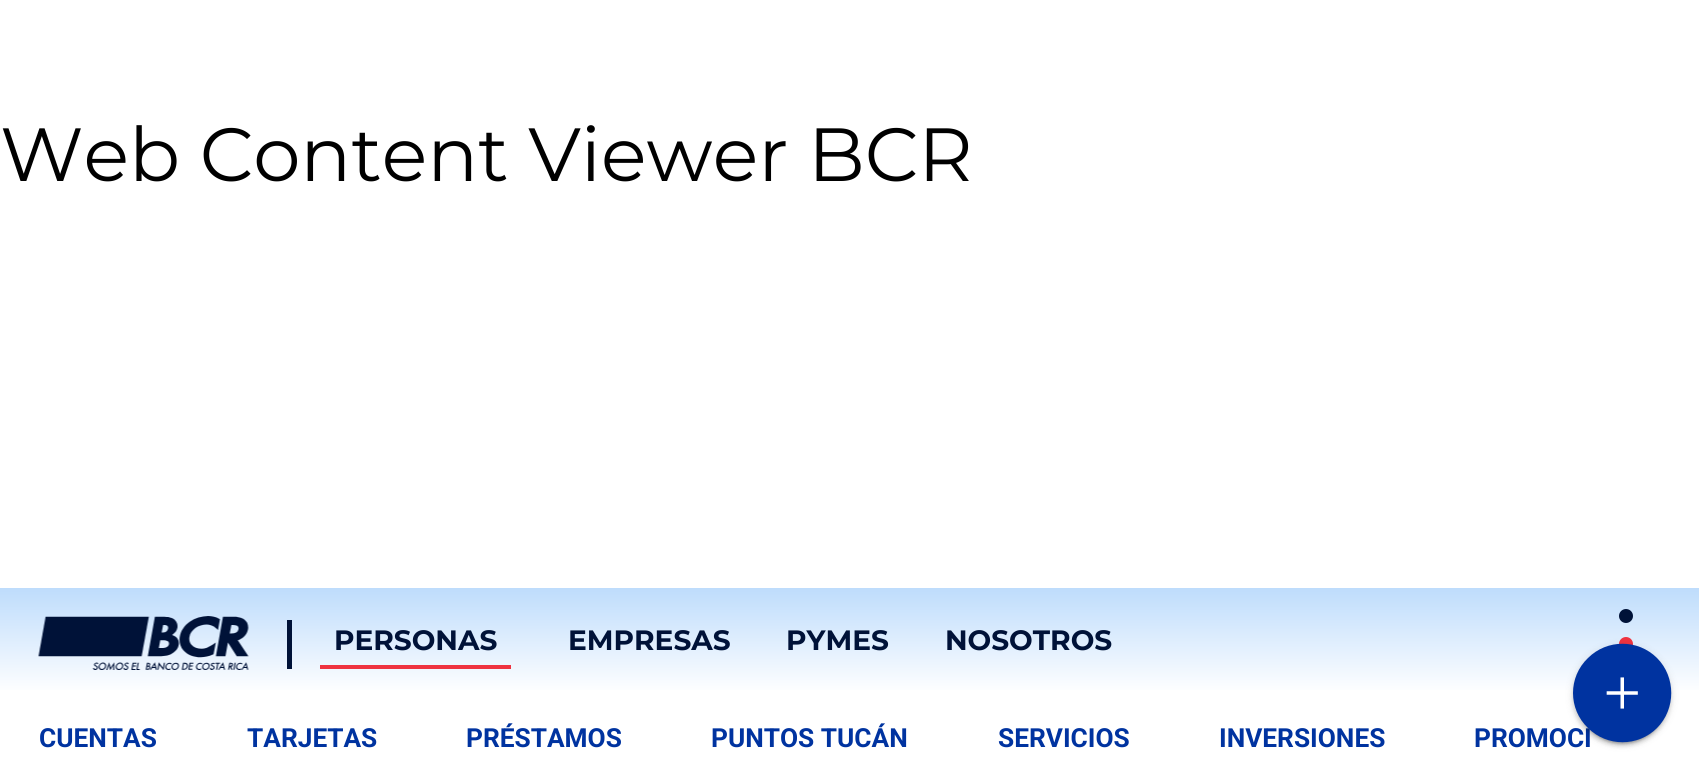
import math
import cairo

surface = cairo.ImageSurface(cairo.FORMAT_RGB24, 1699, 769)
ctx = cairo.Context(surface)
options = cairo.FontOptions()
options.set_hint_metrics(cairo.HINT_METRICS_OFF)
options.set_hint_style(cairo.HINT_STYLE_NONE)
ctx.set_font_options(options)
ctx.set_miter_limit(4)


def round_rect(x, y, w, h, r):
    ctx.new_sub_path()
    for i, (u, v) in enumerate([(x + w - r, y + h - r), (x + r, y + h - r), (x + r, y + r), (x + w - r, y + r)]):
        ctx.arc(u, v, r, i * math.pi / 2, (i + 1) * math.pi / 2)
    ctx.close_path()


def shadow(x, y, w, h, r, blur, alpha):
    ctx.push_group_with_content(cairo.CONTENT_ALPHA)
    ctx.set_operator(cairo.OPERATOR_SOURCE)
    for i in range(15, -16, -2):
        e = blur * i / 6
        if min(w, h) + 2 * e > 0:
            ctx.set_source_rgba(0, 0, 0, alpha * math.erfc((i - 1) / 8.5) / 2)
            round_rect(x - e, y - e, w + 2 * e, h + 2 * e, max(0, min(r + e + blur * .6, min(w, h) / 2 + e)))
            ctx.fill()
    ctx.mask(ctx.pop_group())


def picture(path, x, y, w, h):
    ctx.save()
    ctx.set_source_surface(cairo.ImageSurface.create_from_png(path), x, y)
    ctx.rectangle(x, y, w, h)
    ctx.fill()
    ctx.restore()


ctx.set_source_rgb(1, 1, 1)
ctx.paint()
ctx.select_font_face("Montserrat")
ctx.set_font_size(75.25)
ctx.set_source_rgb(0, 0, 0)
ctx.move_to(0, 181)
ctx.show_text("Web Content Viewer BCR")
gradient = cairo.LinearGradient(850, 588, 850, 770)
gradient.add_color_stop_rgba(0, 0.745, 0.863, 0.988, 1)
gradient.add_color_stop_rgba(0.58, 1, 1, 1, 1)
ctx.set_source(gradient)
ctx.rectangle(0, 588, 1699, 102)
ctx.fill()
picture("img1.png", 38, 616, 211, 54)
ctx.set_source_rgb(0, 0.071, 0.22)
ctx.arc(1626, 616, 7, 0, 2 * math.pi)
ctx.fill()
ctx.set_source_rgb(0.937, 0.2, 0.251)
ctx.arc(1626, 644, 7, 0, 2 * math.pi)
ctx.fill()
ctx.set_source_rgb(0, 0.071, 0.22)
ctx.rectangle(287, 620, 5, 49)
ctx.fill()
ctx.set_source_rgb(0.937, 0.2, 0.251)
ctx.rectangle(320, 665, 191, 4)
ctx.fill()
ctx.select_font_face("Montserrat", cairo.FONT_SLANT_NORMAL, cairo.FONT_WEIGHT_BOLD)
ctx.set_font_size(28)
ctx.set_source_rgb(0, 0.071, 0.22)
ctx.move_to(334, 650)
ctx.show_text("PERSONAS")
ctx.move_to(568, 650)
ctx.show_text("EMPRESAS")
ctx.move_to(786, 650)
ctx.show_text("PYMES")
ctx.move_to(945, 650)
ctx.show_text("NOSOTROS")
ctx.select_font_face("Roboto", cairo.FONT_SLANT_NORMAL, cairo.FONT_WEIGHT_BOLD)
ctx.set_font_size(26.25)
ctx.set_source_rgb(0, 0.2, 0.627)
ctx.move_to(39, 747)
ctx.show_text("CUENTAS")
ctx.move_to(247, 747)
ctx.show_text("TARJETAS")
ctx.move_to(466, 747)
ctx.show_text("PRÉSTAMOS")
ctx.move_to(711, 747)
ctx.show_text("PUNTOS TUCÁN")
ctx.move_to(998, 747)
ctx.show_text("SERVICIOS")
ctx.move_to(1219, 747)
ctx.show_text("INVERSIONES")
ctx.move_to(1474, 747)
ctx.show_text("PROMOCI")
ctx.set_source_rgb(0, 0, 0)
shadow(1573, 646, 98, 98, 49, 4.5, 0.12)
shadow(1573, 648, 98, 98, 49, 2, 0.14)
shadow(1577, 653, 91, 91, 45.5, 1, 0.2)
ctx.set_source_rgb(0, 0.2, 0.627)
ctx.new_path()
ctx.move_to(1657, 658)
ctx.curve_to(1676, 677, 1676, 709, 1657, 728)
ctx.curve_to(1638, 747, 1607, 747, 1588, 728)
ctx.curve_to(1568, 709, 1568, 677, 1588, 658)
ctx.curve_to(1607, 639, 1638, 639, 1657, 658)
ctx.close_path()
ctx.fill()
picture("img2.png", 1606, 677, 32, 32)
surface.write_to_png("page.png")
